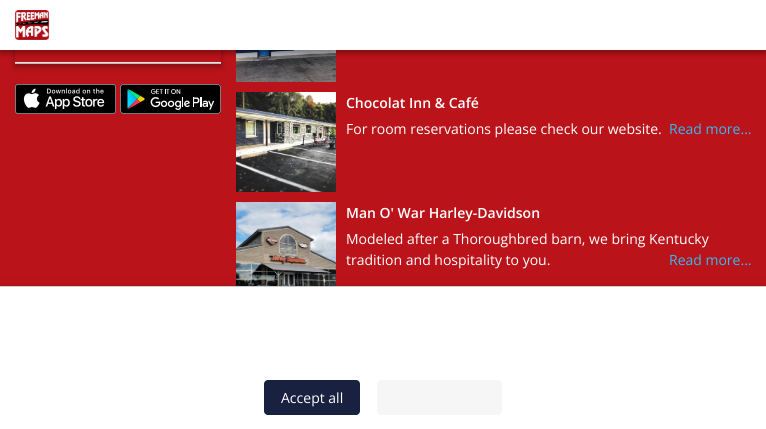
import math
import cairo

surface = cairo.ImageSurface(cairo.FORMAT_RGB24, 766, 429)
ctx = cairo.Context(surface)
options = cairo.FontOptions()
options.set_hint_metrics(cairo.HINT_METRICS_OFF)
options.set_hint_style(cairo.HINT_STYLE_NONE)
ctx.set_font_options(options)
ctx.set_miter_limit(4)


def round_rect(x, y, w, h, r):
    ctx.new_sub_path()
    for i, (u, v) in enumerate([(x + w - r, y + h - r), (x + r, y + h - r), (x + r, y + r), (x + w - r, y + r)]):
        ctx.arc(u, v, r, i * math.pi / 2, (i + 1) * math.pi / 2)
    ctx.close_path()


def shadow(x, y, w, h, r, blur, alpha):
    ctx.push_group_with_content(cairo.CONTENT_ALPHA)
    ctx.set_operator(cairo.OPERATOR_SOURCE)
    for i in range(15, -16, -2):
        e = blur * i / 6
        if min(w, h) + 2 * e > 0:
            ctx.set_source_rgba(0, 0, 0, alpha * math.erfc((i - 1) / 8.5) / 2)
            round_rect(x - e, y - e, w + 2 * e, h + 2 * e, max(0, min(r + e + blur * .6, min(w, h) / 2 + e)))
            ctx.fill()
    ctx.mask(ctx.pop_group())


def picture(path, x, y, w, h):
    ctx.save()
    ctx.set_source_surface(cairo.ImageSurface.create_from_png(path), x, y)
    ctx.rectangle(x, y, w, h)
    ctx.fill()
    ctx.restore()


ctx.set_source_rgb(0.729, 0.078, 0.102)
ctx.paint()
ctx.save()
ctx.set_fill_rule(cairo.FILL_RULE_EVEN_ODD)
ctx.new_path()
ctx.move_to(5, 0)
ctx.line_to(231, 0)
ctx.line_to(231, 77)
ctx.line_to(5, 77)
ctx.close_path()
ctx.move_to(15, -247)
ctx.line_to(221, -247)
ctx.line_to(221, 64)
ctx.line_to(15, 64)
ctx.close_path()
ctx.clip()
ctx.set_source_rgb(0, 0, 0)
shadow(15, -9, 206, 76, 0, 3, 0.3)
ctx.restore()
ctx.set_source_rgb(0.89, 0.89, 0.89)
ctx.rectangle(15, 62, 206, 1)
ctx.fill()
picture("img4.png", 236, 50, 100, 32)
ctx.set_source_rgb(0, 0, 0)
shadow(0, 3, 766, 50, 0, 3, 0.35)
ctx.set_source_rgb(1, 1, 1)
ctx.rectangle(0, 0, 766, 50)
ctx.fill()
picture("img1.png", 15, 10, 35, 30)
ctx.set_source_rgb(0.733, 0.733, 0.733)
ctx.rectangle(15, 63, 206, 1)
ctx.fill()
picture("img2.png", 15, 84, 101, 30)
picture("img3.png", 120, 84, 101, 30)
picture("img5.png", 236, 92, 100, 100)
ctx.select_font_face("Open Sans SemiBold")
ctx.set_font_size(14)
ctx.set_source_rgb(1, 1, 1)
ctx.move_to(346, 108)
ctx.show_text("Chocolat Inn & Café")
ctx.select_font_face("Open Sans")
ctx.move_to(346, 134)
ctx.show_text("For room reservations please check our website.")
ctx.set_source_rgb(0.208, 0.729, 0.949)
ctx.move_to(669, 134)
ctx.show_text("Read more...")
picture("img6.png", 236, 202, 100, 84)
ctx.select_font_face("Open Sans SemiBold")
ctx.set_source_rgb(1, 1, 1)
ctx.move_to(346, 218)
ctx.show_text("Man O' War Harley-Davidson")
ctx.select_font_face("Open Sans")
ctx.move_to(346, 244)
ctx.show_text("Modeled after a Thoroughbred barn, we bring Kentucky")
ctx.move_to(346, 265)
ctx.show_text("tradition and hospitality to you.")
ctx.set_source_rgb(0.208, 0.729, 0.949)
ctx.move_to(669, 265)
ctx.show_text("Read more...")
ctx.set_source_rgb(0, 0, 0)
shadow(0, 284, 766, 143, 0, 4, 0.07)
ctx.set_source_rgb(1, 1, 1)
ctx.rectangle(0, 287, 766, 142)
ctx.fill()
ctx.set_source_rgb(0.8, 0.8, 0.8)
ctx.rectangle(0, 286, 766, 1)
ctx.fill()
ctx.set_source_rgb(0.098, 0.129, 0.251)
round_rect(264, 380, 96, 35, 4)
ctx.fill()
ctx.set_source_rgb(1, 1, 1)
ctx.move_to(281, 403)
ctx.show_text("Accept all")
ctx.set_source_rgb(0.961, 0.961, 0.961)
round_rect(377, 380, 125, 35, 4)
ctx.fill()
surface.write_to_png("page.png")
